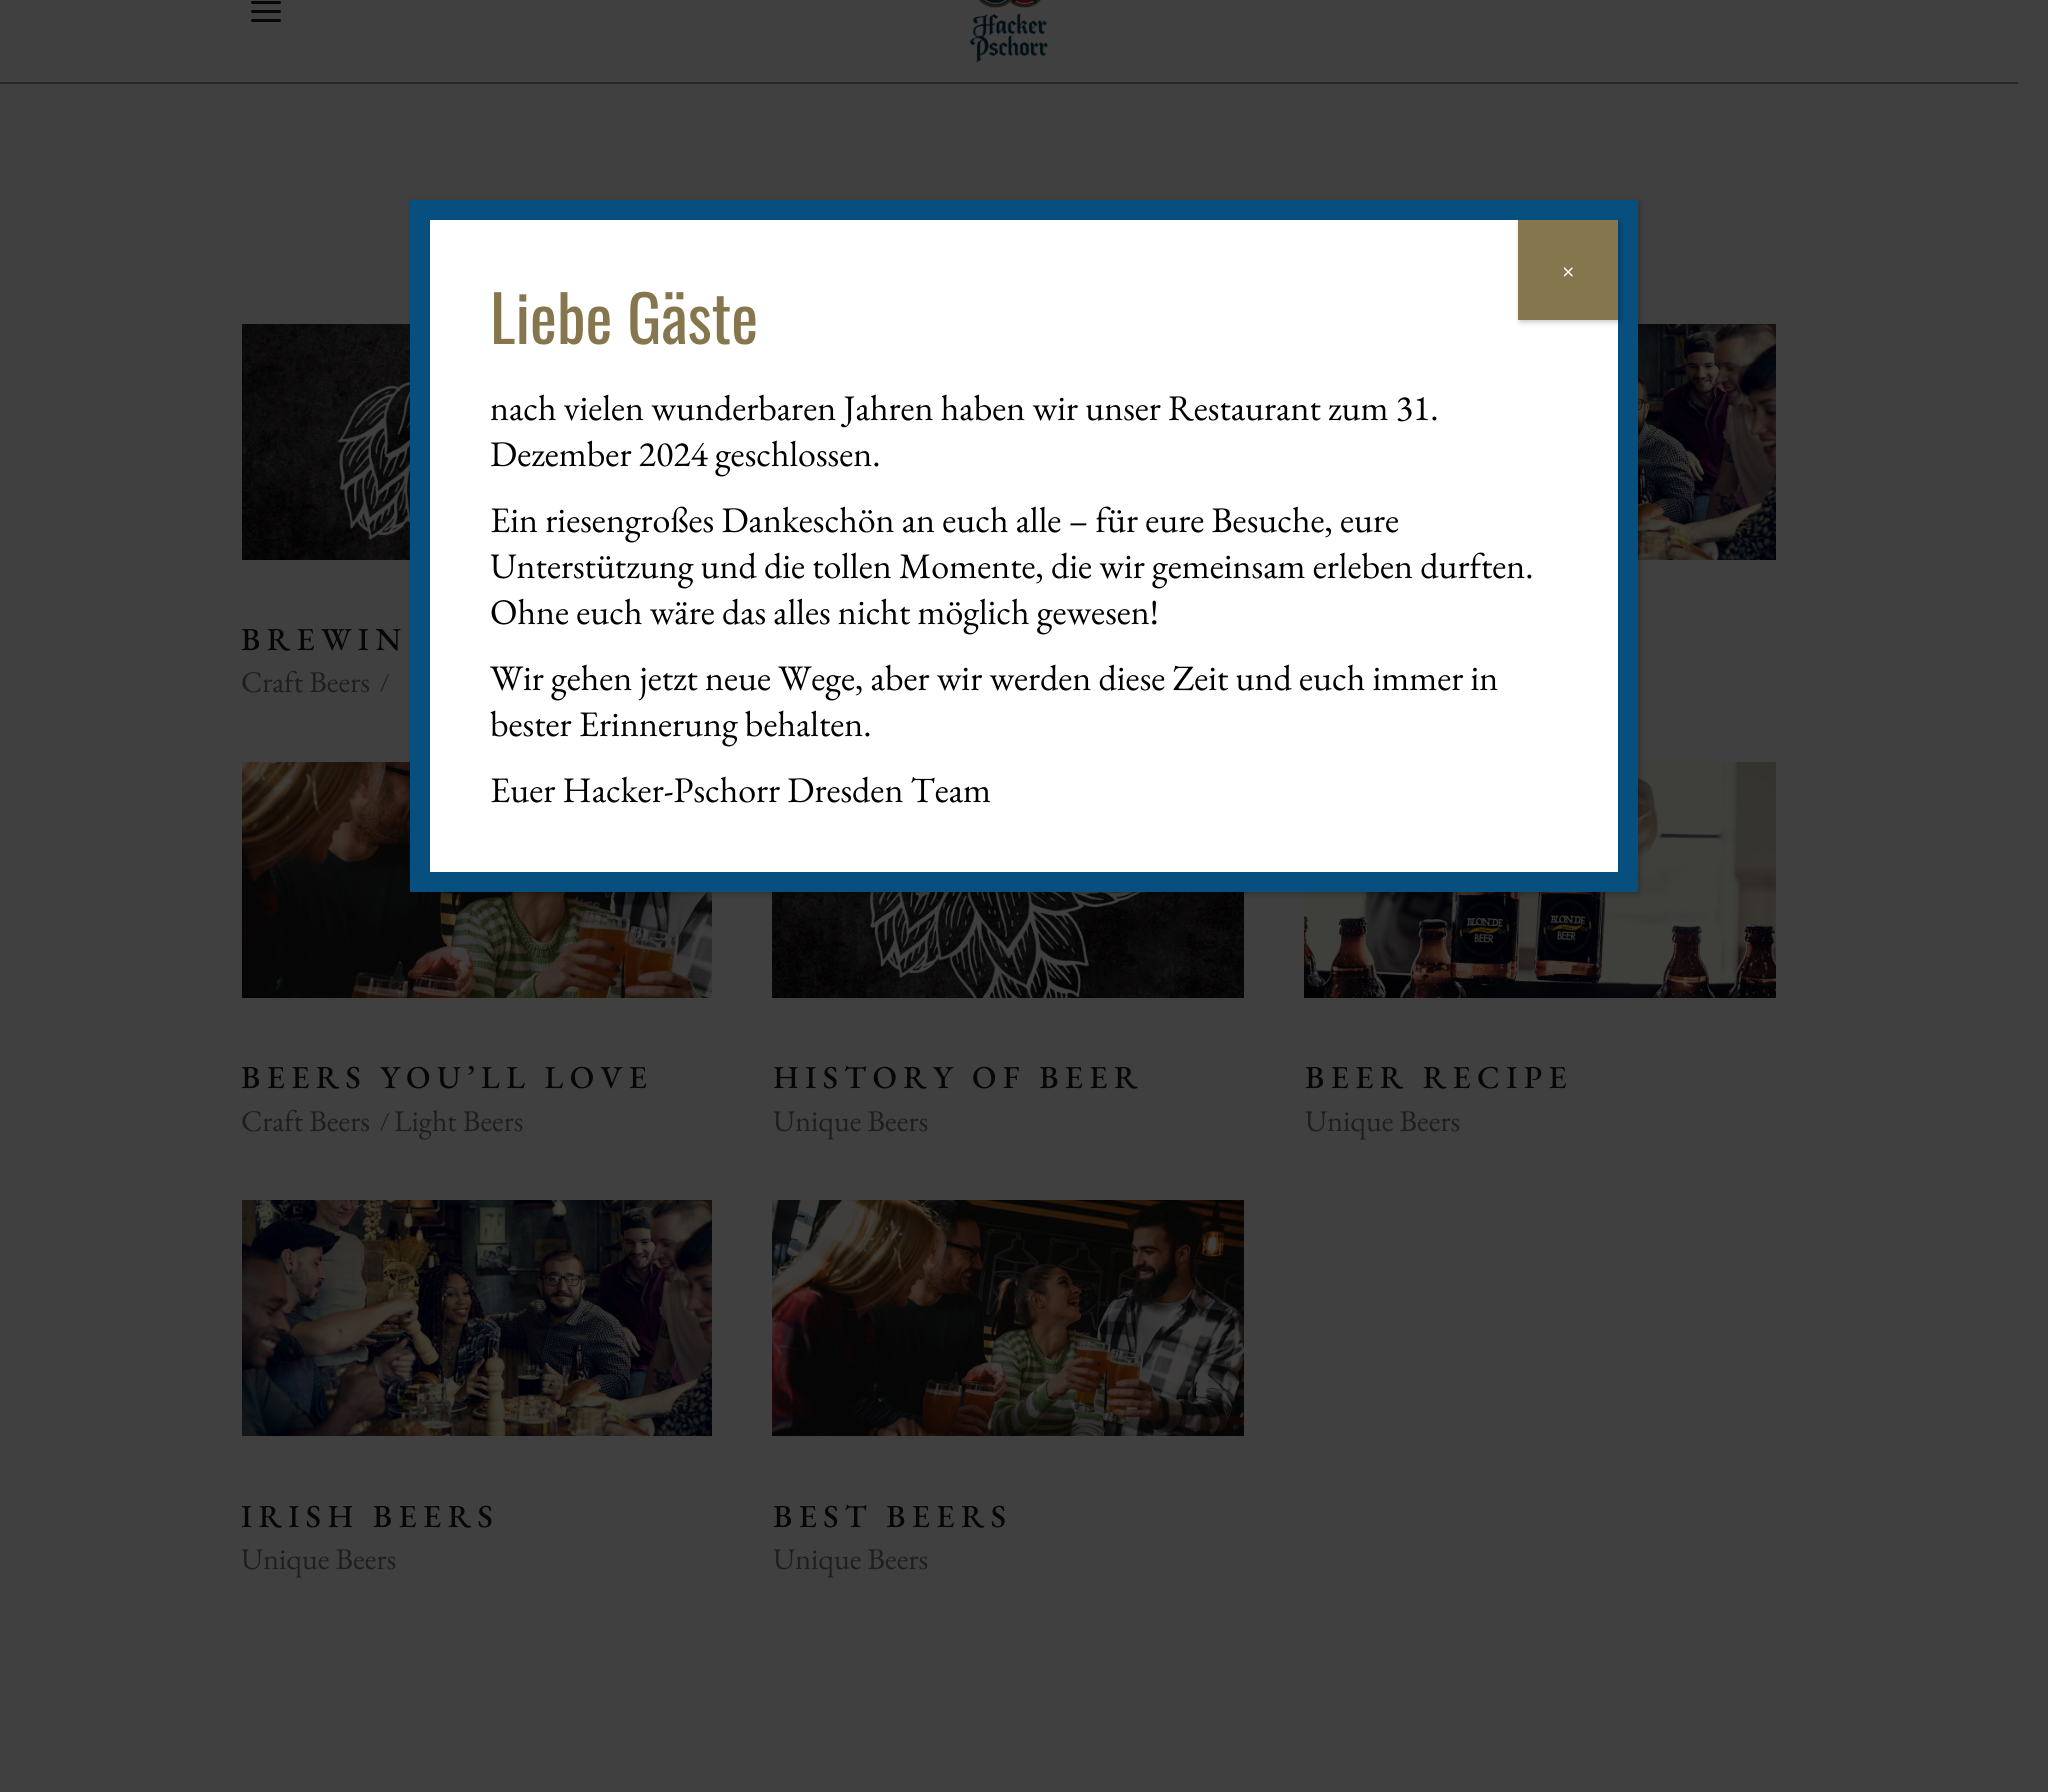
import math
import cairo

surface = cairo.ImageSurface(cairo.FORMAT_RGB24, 2048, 1792)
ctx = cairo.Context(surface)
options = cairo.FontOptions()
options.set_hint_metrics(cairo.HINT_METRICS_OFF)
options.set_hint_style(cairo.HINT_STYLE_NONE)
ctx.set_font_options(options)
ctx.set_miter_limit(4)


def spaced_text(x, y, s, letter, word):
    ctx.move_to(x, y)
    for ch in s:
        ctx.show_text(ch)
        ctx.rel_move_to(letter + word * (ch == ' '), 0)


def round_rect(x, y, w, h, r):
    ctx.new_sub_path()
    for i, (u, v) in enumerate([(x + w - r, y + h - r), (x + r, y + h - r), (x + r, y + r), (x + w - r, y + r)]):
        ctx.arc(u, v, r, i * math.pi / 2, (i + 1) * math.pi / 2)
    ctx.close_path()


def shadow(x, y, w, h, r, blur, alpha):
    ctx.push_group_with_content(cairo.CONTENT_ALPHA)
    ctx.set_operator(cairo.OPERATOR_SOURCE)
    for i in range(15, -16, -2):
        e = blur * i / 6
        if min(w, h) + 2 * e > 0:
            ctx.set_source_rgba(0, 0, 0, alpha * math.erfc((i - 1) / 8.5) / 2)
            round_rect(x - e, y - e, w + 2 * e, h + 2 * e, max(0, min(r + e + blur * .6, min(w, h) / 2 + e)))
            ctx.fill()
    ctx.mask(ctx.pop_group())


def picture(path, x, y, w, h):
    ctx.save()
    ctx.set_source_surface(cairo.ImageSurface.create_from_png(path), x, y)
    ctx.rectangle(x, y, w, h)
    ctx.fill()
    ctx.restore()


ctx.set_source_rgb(0.251, 0.251, 0.251)
ctx.paint()
picture("img3.png", 1638, 324, 138, 236)
picture("img4.png", 242, 324, 168, 236)
picture("img5.png", 242, 762, 470, 236)
picture("img6.png", 772, 892, 472, 106)
picture("img7.png", 1304, 762, 472, 236)
ctx.set_source_rgb(0.008, 0.008, 0.008)
shadow(412, 202, 1228, 692, 0, 3, 0.23)
ctx.set_source_rgb(1, 1, 1)
ctx.rectangle(420, 210, 1208, 672)
ctx.fill_preserve()
ctx.set_source_rgb(0.027, 0.31, 0.498)
ctx.set_line_width(20)
ctx.stroke()
ctx.set_source_rgb(0.008, 0.008, 0.008)
shadow(1520, 222, 100, 100, 0, 3, 0.23)
ctx.set_source_rgb(0.525, 0.463, 0.302)
ctx.rectangle(1518, 220, 100, 100)
ctx.fill()
ctx.select_font_face("EB Garamond")
ctx.set_font_size(24)
ctx.set_source_rgb(1, 1, 1)
ctx.move_to(1561, 278)
ctx.show_text("×")
ctx.select_font_face("Oswald")
ctx.set_font_size(64)
ctx.set_source_rgb(0.525, 0.463, 0.302)
ctx.move_to(490, 344)
ctx.show_text("Liebe Gäste")
ctx.select_font_face("EB Garamond")
ctx.set_font_size(36)
ctx.set_source_rgb(0, 0, 0)
ctx.move_to(490, 420)
ctx.show_text("nach vielen wunderbaren Jahren haben wir unser Restaurant zum 31.")
ctx.move_to(490, 466)
ctx.show_text("Dezember 2024 geschlossen.")
ctx.move_to(490, 532)
ctx.show_text("Ein riesengroßes Dankeschön an euch alle – für eure Besuche, eure")
ctx.move_to(490, 578)
ctx.show_text("Unterstützung und die tollen Momente, die wir gemeinsam erleben durften.")
ctx.move_to(490, 624)
ctx.show_text("Ohne euch wäre das alles nicht möglich gewesen!")
ctx.move_to(490, 690)
ctx.show_text("Wir gehen jetzt neue Wege, aber wir werden diese Zeit und euch immer in")
ctx.move_to(490, 736)
ctx.show_text("bester Erinnerung behalten.")
ctx.move_to(490, 802)
ctx.show_text("Euer Hacker-Pschorr Dresden Team")
ctx.set_source_rgb(0.153, 0.153, 0.149)
ctx.rectangle(0, 82, 2018, 2)
ctx.fill()
picture("img1.png", 251, 1, 30, 21)
picture("img2.png", 970, 0, 78, 63)
ctx.select_font_face("EB Garamond Medium")
ctx.set_font_size(32)
ctx.set_source_rgb(0.027, 0.027, 0.027)
spaced_text(241, 650, "BREWIN", 6.4, 0)
ctx.select_font_face("EB Garamond")
ctx.set_font_size(30)
ctx.set_source_rgb(0.118, 0.118, 0.118)
ctx.move_to(241, 692)
ctx.show_text("Craft Beers")
ctx.set_font_size(24)
ctx.move_to(380, 690)
ctx.show_text("/")
ctx.select_font_face("EB Garamond Medium")
ctx.set_font_size(32)
ctx.set_source_rgb(0.027, 0.027, 0.027)
spaced_text(241, 1088, "BEERS YOU’LL LOVE", 6.4, 0)
ctx.select_font_face("EB Garamond")
ctx.set_font_size(30)
ctx.set_source_rgb(0.118, 0.118, 0.118)
ctx.move_to(241, 1131)
ctx.show_text("Craft Beers")
ctx.set_font_size(24)
ctx.move_to(380, 1129)
ctx.show_text("/")
ctx.set_font_size(30)
ctx.move_to(394, 1131)
ctx.show_text("Light Beers")
ctx.select_font_face("EB Garamond Medium")
ctx.set_font_size(32)
ctx.set_source_rgb(0.027, 0.027, 0.027)
spaced_text(773, 1088, "HISTORY OF BEER", 6.4, 0)
ctx.select_font_face("EB Garamond")
ctx.set_font_size(30)
ctx.set_source_rgb(0.118, 0.118, 0.118)
ctx.move_to(773, 1131)
ctx.show_text("Unique Beers")
ctx.select_font_face("EB Garamond Medium")
ctx.set_font_size(32)
ctx.set_source_rgb(0.027, 0.027, 0.027)
spaced_text(1305, 1088, "BEER RECIPE", 6.4, 0)
ctx.select_font_face("EB Garamond")
ctx.set_font_size(30)
ctx.set_source_rgb(0.118, 0.118, 0.118)
ctx.move_to(1305, 1131)
ctx.show_text("Unique Beers")
picture("img8.png", 242, 1200, 470, 236)
ctx.select_font_face("EB Garamond Medium")
ctx.set_font_size(32)
ctx.set_source_rgb(0.027, 0.027, 0.027)
spaced_text(241, 1527, "IRISH BEERS", 6.4, 0)
ctx.select_font_face("EB Garamond")
ctx.set_font_size(30)
ctx.set_source_rgb(0.118, 0.118, 0.118)
ctx.move_to(241, 1569)
ctx.show_text("Unique Beers")
picture("img9.png", 772, 1200, 472, 236)
ctx.select_font_face("EB Garamond Medium")
ctx.set_font_size(32)
ctx.set_source_rgb(0.027, 0.027, 0.027)
spaced_text(773, 1527, "BEST BEERS", 6.4, 0)
ctx.select_font_face("EB Garamond")
ctx.set_font_size(30)
ctx.set_source_rgb(0.118, 0.118, 0.118)
ctx.move_to(773, 1569)
ctx.show_text("Unique Beers")
surface.write_to_png("page.png")
